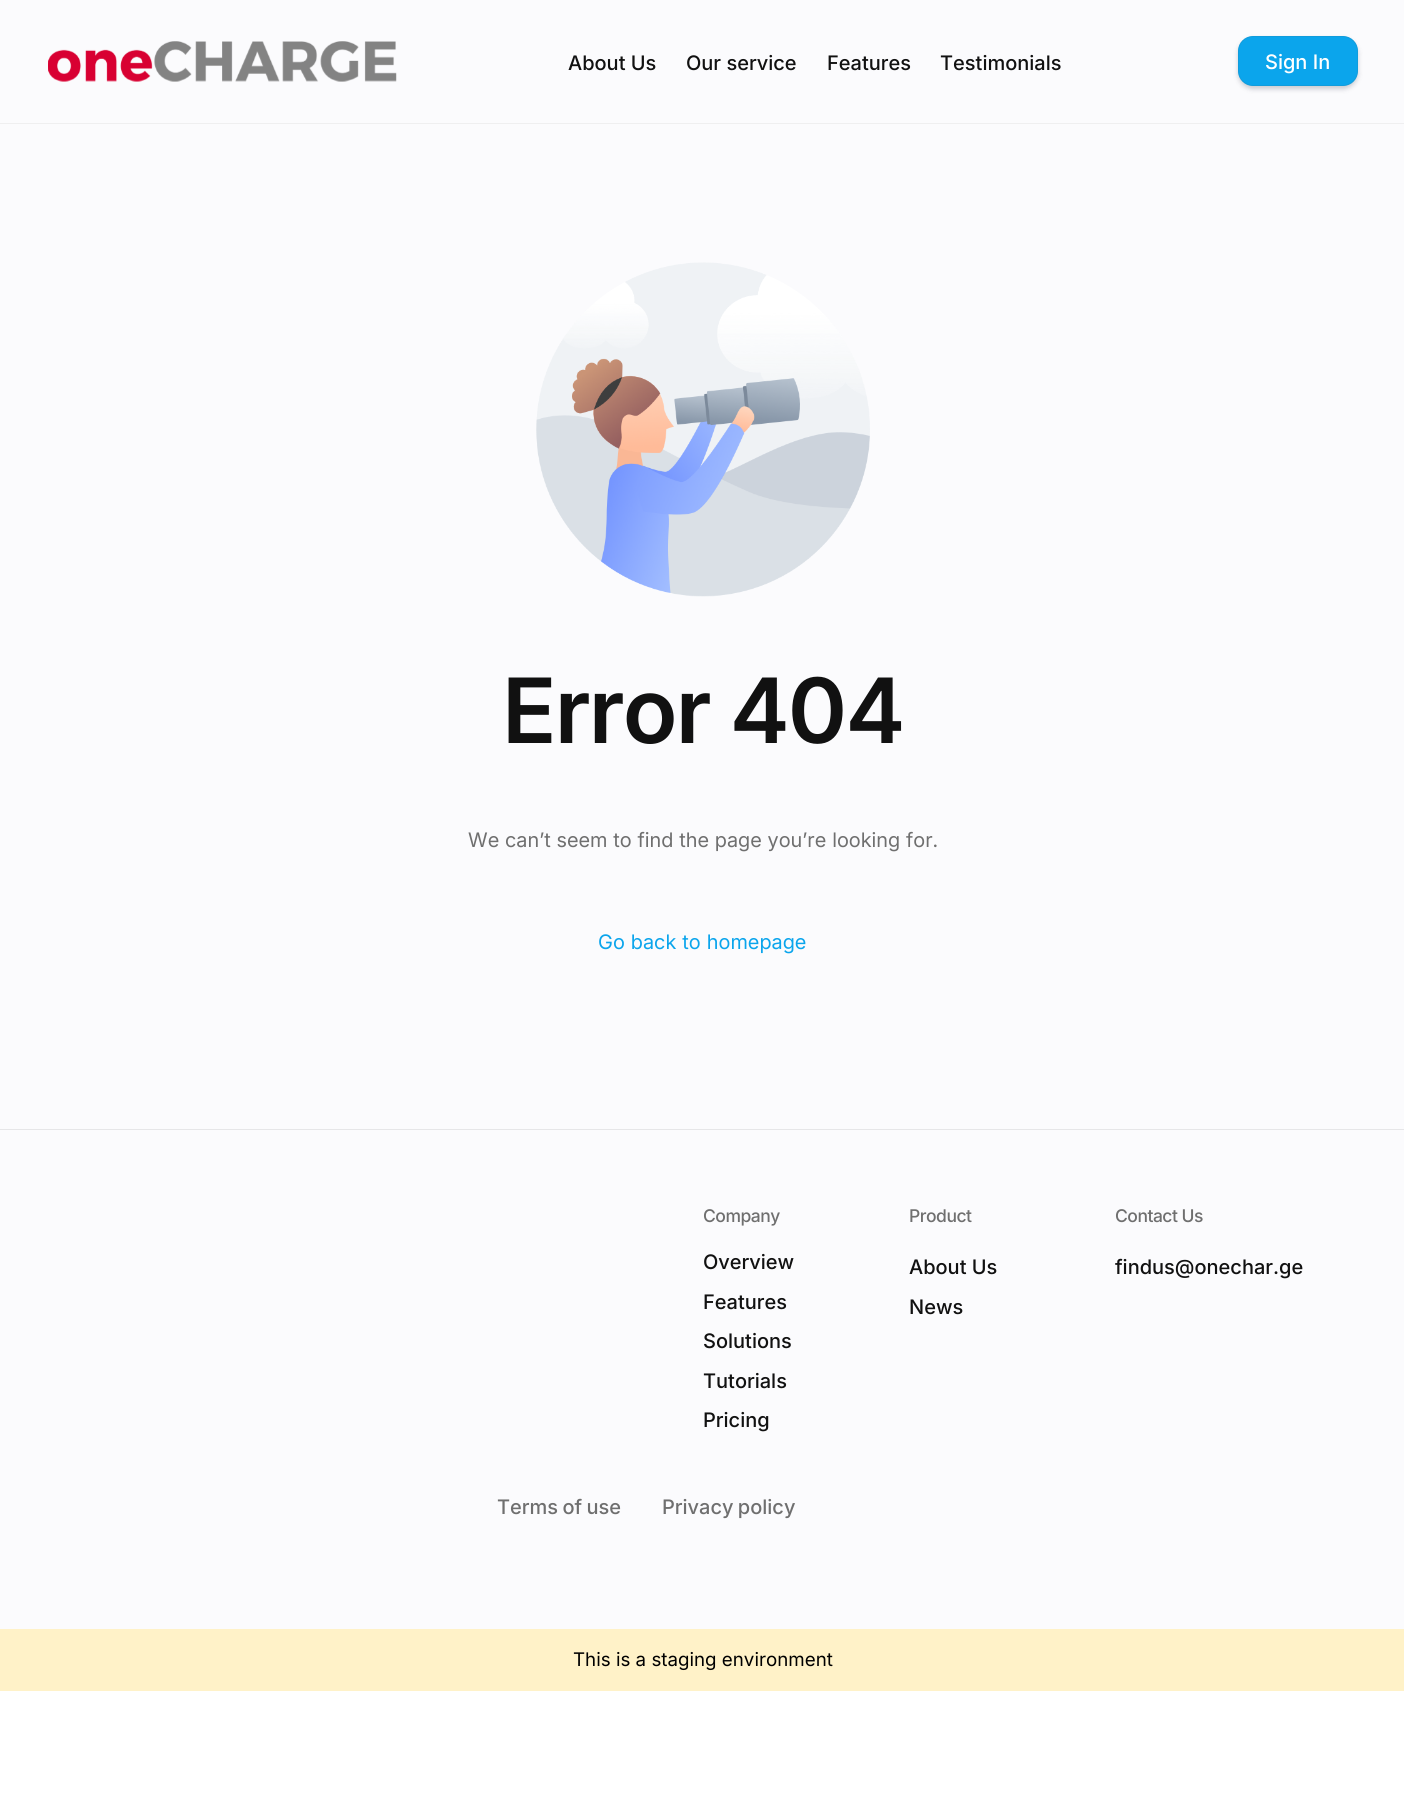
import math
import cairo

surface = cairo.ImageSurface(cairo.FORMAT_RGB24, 1404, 1812)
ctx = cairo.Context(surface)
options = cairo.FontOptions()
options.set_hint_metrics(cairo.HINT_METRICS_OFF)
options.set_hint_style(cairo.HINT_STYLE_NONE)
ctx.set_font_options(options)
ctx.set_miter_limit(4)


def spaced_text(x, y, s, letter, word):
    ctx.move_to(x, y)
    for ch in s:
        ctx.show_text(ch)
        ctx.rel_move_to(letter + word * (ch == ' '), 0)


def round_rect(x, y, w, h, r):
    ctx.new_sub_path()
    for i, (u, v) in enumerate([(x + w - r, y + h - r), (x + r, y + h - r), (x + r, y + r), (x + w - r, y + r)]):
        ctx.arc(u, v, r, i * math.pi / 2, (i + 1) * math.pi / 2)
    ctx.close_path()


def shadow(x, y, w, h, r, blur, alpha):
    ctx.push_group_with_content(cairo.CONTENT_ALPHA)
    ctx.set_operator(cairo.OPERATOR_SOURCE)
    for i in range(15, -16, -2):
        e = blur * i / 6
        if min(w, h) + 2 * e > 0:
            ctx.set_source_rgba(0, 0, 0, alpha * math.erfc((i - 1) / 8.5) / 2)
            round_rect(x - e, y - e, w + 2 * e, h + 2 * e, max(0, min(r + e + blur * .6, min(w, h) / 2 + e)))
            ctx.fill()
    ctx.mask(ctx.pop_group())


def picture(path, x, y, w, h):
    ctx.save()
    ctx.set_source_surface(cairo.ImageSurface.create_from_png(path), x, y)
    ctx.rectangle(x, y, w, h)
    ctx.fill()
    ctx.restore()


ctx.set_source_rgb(1, 1, 1)
ctx.paint()
ctx.set_source_rgb(0.984, 0.984, 0.992)
ctx.rectangle(0, 0, 1404, 1629)
ctx.fill()
ctx.rectangle(-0.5, -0.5, 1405, 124)
ctx.set_source_rgb(0.937, 0.937, 0.941)
ctx.set_line_width(1)
ctx.stroke()
picture("img1.png", 48, 41, 349, 41)
ctx.select_font_face("Inter Medium")
ctx.set_font_size(20)
ctx.set_source_rgb(0.067, 0.067, 0.067)
ctx.move_to(568, 70)
ctx.show_text("About Us")
ctx.move_to(686, 70)
ctx.show_text("Our service")
ctx.move_to(827, 70)
ctx.show_text("Features")
ctx.move_to(940, 70)
ctx.show_text("Testimonials")
ctx.set_source_rgb(0, 0.039, 0.122)
shadow(1238, 39, 120, 50, 15, 2.5, 0.2)
ctx.set_source_rgb(0.043, 0.647, 0.925)
round_rect(1238, 36, 120, 50, 15)
ctx.fill()
round_rect(1238.5, 36.5, 119, 49, 14.5)
ctx.set_source_rgba(0.31, 0.31, 0.31, 0.1)
ctx.stroke()
ctx.set_source_rgb(1, 1, 1)
ctx.move_to(1265, 69)
ctx.show_text("Sign In")
picture("img2.png", 536, 262, 334, 335)
ctx.select_font_face("Inter SemiBold")
ctx.set_font_size(90)
ctx.set_source_rgb(0.067, 0.067, 0.067)
spaced_text(502, 743, "Error 404", -1.75, -1)
ctx.select_font_face("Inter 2")
ctx.set_font_size(20)
ctx.set_source_rgb(0.435, 0.435, 0.435)
spaced_text(468, 847, "We can’t seem to find the page you’re looking for.", 0, 0.25)
ctx.set_source_rgb(0.043, 0.647, 0.925)
spaced_text(598, 949, "Go back to homepage", 0, 0.5)
ctx.set_source_rgb(0.902, 0.902, 0.91)
ctx.rectangle(0, 1129, 1404, 1)
ctx.fill()
ctx.select_font_face("Inter Medium")
ctx.set_font_size(17.5)
ctx.set_source_rgb(0.435, 0.435, 0.435)
spaced_text(703, 1222, "Company", -0.5, 0)
ctx.set_font_size(20)
ctx.set_source_rgb(0.067, 0.067, 0.067)
ctx.move_to(703, 1269)
ctx.show_text("Overview")
ctx.move_to(703, 1309)
ctx.show_text("Features")
ctx.move_to(703, 1348)
ctx.show_text("Solutions")
ctx.move_to(703, 1388)
ctx.show_text("Tutorials")
ctx.move_to(703, 1427)
ctx.show_text("Pricing")
ctx.set_font_size(17.5)
ctx.set_source_rgb(0.435, 0.435, 0.435)
spaced_text(909, 1222, "Product", -0.5, 0)
ctx.set_font_size(20)
ctx.set_source_rgb(0.067, 0.067, 0.067)
ctx.move_to(909, 1274)
ctx.show_text("About Us")
ctx.move_to(909, 1314)
ctx.show_text("News")
ctx.set_font_size(17.5)
ctx.set_source_rgb(0.435, 0.435, 0.435)
spaced_text(1115, 1222, "Contact Us", -0.5, 0)
ctx.set_font_size(20)
ctx.set_source_rgb(0.067, 0.067, 0.067)
ctx.move_to(1115, 1274)
ctx.show_text("findus@onechar.ge")
ctx.set_source_rgb(0.435, 0.435, 0.435)
spaced_text(497, 1514, "Terms of use", 0, -1)
spaced_text(662, 1514, "Privacy policy", 0, -1)
ctx.set_source_rgb(1, 0.949, 0.784)
ctx.rectangle(0, 1629, 1404, 62)
ctx.fill()
ctx.select_font_face("Inter")
ctx.set_font_size(18.75)
ctx.set_source_rgb(0, 0, 0)
ctx.move_to(573, 1666)
ctx.show_text("This is a staging environment")
surface.write_to_png("page.png")
